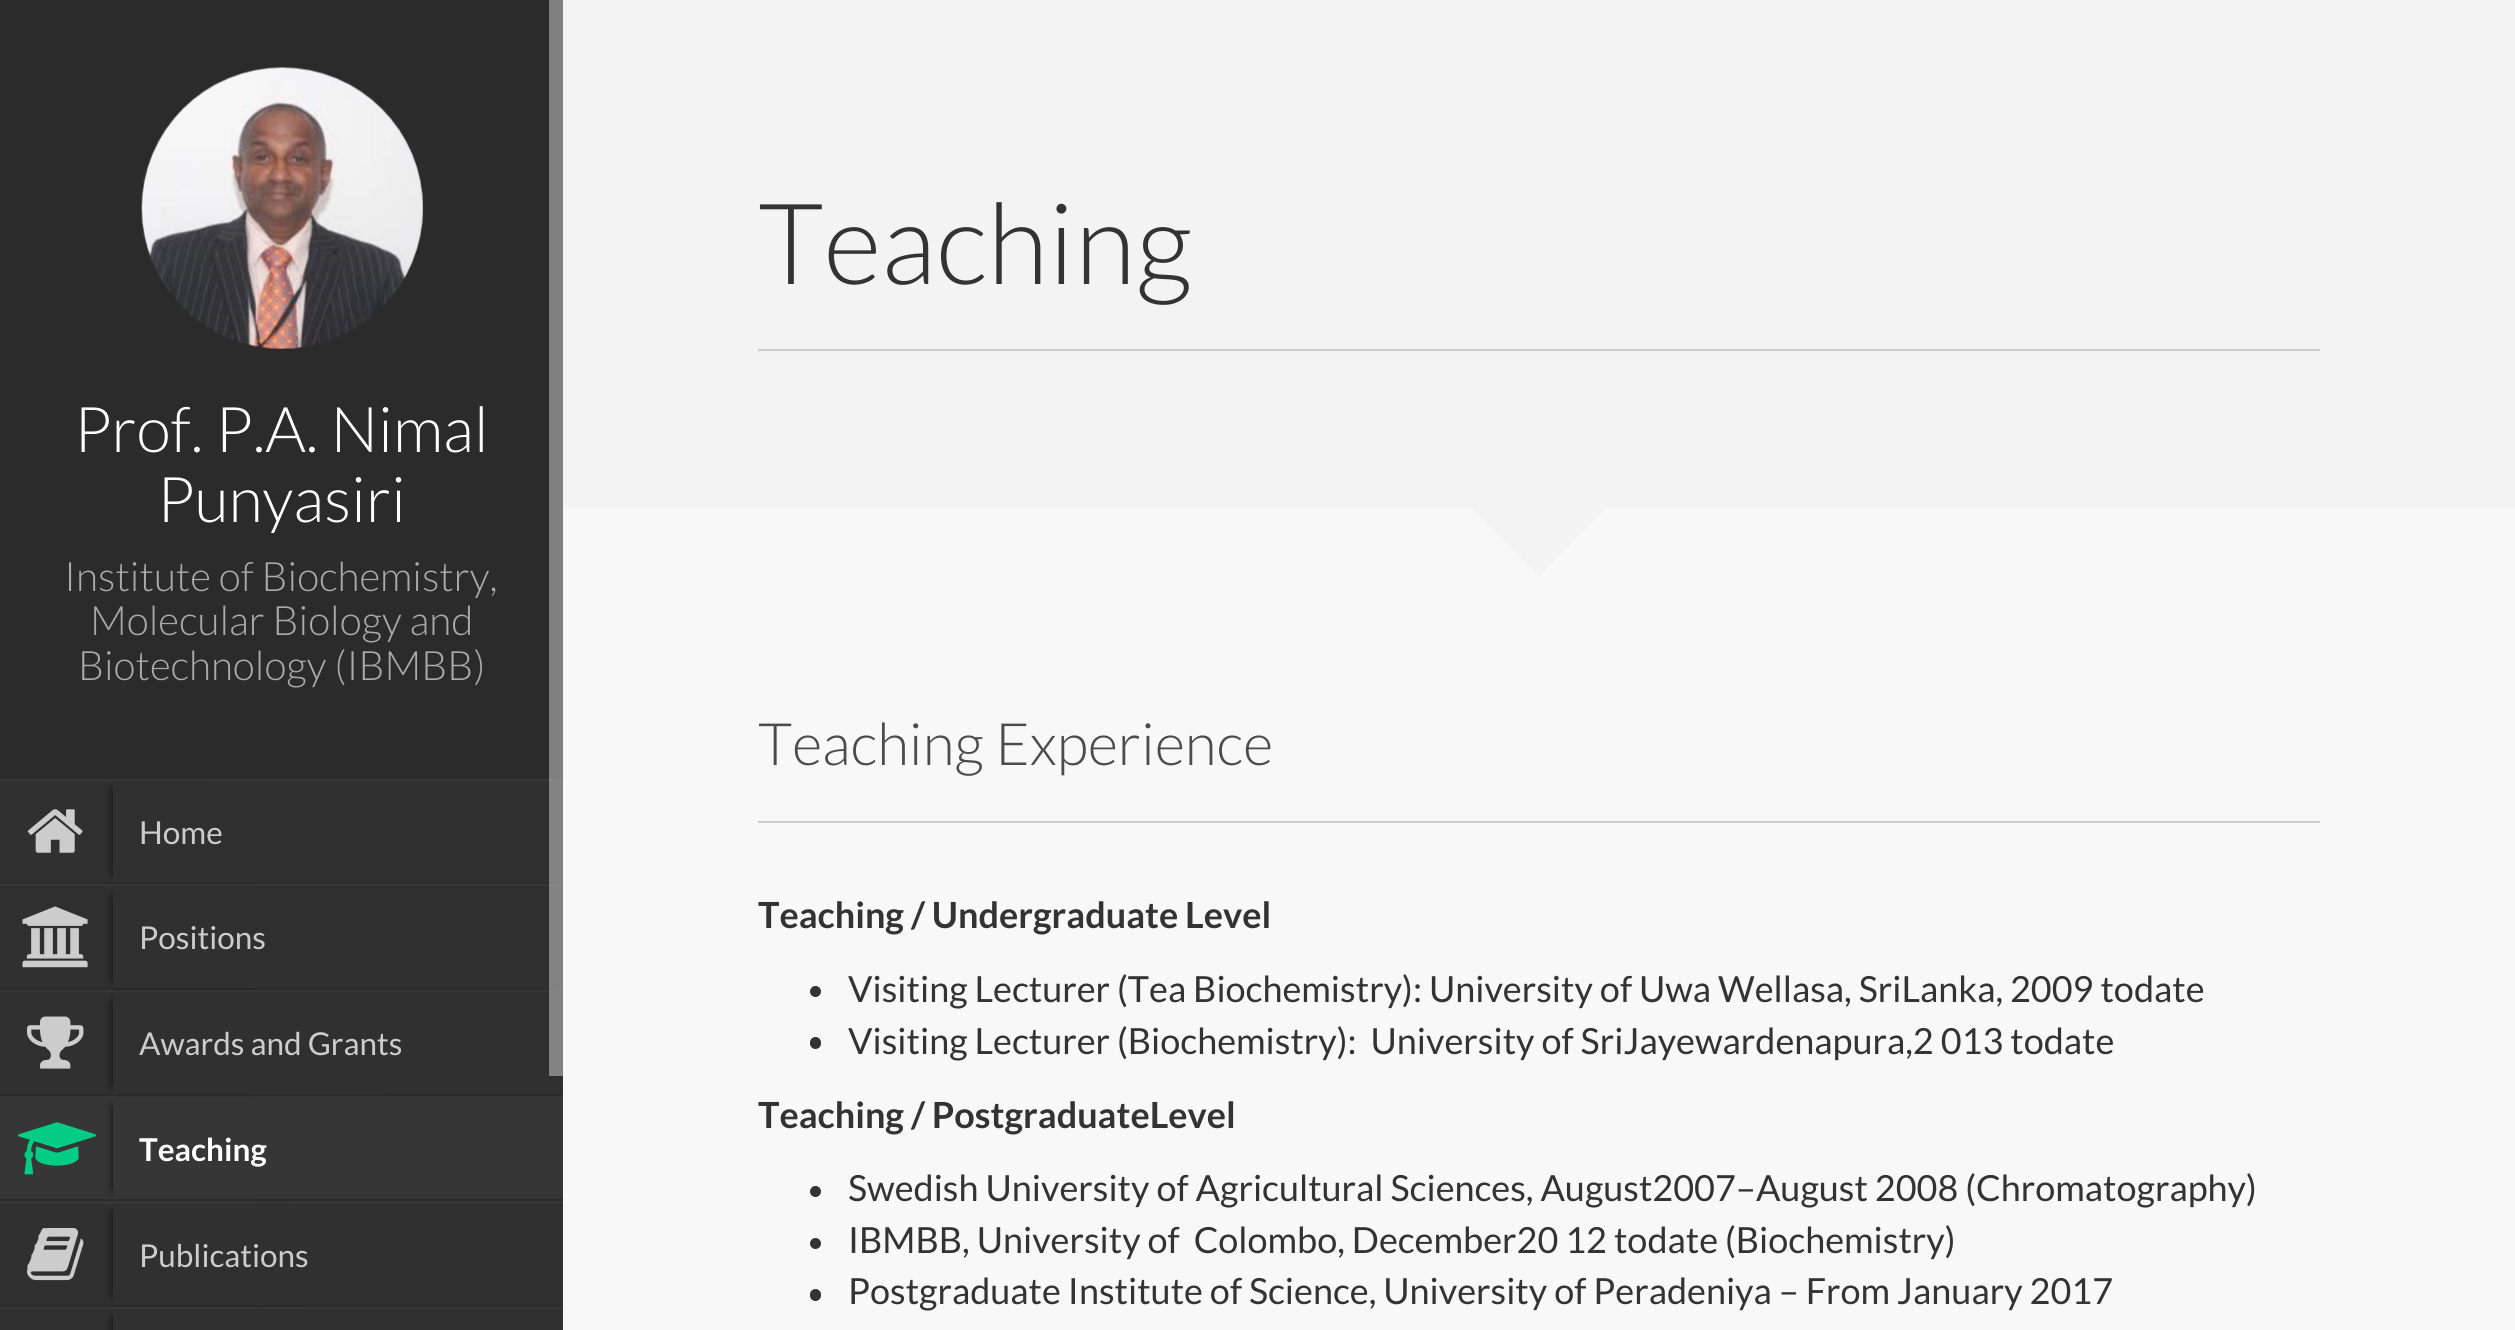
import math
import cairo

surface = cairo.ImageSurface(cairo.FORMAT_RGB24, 2515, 1330)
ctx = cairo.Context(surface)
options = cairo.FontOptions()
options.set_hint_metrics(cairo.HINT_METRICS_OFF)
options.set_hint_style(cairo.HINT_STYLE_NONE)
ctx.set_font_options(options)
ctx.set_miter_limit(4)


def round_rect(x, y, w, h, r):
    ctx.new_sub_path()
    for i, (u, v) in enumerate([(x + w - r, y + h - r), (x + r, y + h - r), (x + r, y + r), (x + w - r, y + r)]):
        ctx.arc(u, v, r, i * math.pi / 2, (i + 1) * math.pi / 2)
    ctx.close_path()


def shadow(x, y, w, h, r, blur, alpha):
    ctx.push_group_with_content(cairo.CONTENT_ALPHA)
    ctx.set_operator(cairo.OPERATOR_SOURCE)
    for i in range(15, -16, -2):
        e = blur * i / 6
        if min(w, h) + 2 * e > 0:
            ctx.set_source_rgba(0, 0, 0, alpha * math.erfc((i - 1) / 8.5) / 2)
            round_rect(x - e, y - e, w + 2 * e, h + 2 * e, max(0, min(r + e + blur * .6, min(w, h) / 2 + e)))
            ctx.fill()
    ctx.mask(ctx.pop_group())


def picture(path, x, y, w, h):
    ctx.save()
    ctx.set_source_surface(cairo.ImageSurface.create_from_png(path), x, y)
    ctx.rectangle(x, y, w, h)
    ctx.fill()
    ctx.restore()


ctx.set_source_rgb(0.169, 0.169, 0.169)
ctx.paint()
ctx.set_source_rgb(0.502, 0.502, 0.502)
ctx.rectangle(549, 0, 14, 779)
ctx.fill()
picture("img1.png", 141, 67, 283, 283)
ctx.select_font_face("Lato Light")
ctx.set_font_size(63)
ctx.set_source_rgb(1, 1, 1)
ctx.move_to(74, 452)
ctx.show_text("Prof. P.A. Nimal")
ctx.move_to(157, 522)
ctx.show_text("Punyasiri")
ctx.set_font_size(40.5)
ctx.set_source_rgb(0.667, 0.667, 0.667)
ctx.move_to(64, 591)
ctx.show_text("Institute of Biochemistry,")
ctx.move_to(90, 635)
ctx.show_text("Molecular Biology and")
ctx.move_to(78, 680)
ctx.show_text("Biotechnology (IBMBB)")
ctx.set_source_rgb(0.188, 0.188, 0.188)
ctx.rectangle(0, 781, 549, 101)
ctx.fill()
ctx.set_source_rgb(0.51, 0.51, 0.51)
ctx.rectangle(549, 781, 14, 101)
ctx.fill()
ctx.set_source_rgb(0.216, 0.216, 0.216)
ctx.rectangle(0, 779, 549, 2)
ctx.fill()
ctx.set_source_rgb(0.518, 0.518, 0.518)
ctx.rectangle(549, 779, 14, 2)
ctx.fill()
ctx.set_source_rgb(0.502, 0.502, 0.502)
ctx.rectangle(549, 882, 14, 2)
ctx.fill()
picture("img2.png", 27, 809, 56, 44)
ctx.set_source_rgb(0.188, 0.188, 0.188)
ctx.rectangle(0, 886, 549, 102)
ctx.fill()
ctx.set_source_rgb(0.216, 0.216, 0.216)
ctx.rectangle(0, 884, 549, 2)
ctx.fill()
ctx.save()
ctx.set_fill_rule(cairo.FILL_RULE_EVEN_ODD)
ctx.new_path()
ctx.move_to(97, 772)
ctx.line_to(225, 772)
ctx.line_to(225, 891)
ctx.line_to(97, 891)
ctx.close_path()
ctx.move_to(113, 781)
ctx.line_to(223, 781)
ctx.line_to(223, 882)
ctx.line_to(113, 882)
ctx.close_path()
ctx.clip()
ctx.set_source_rgb(0, 0, 0)
shadow(115, 790, 92, 83, 0, 5.5, 1)
ctx.restore()
ctx.select_font_face("Lato")
ctx.set_font_size(31.5)
ctx.set_source_rgb(0.8, 0.8, 0.8)
ctx.move_to(139, 844)
ctx.show_text("Home")
ctx.set_source_rgb(0.51, 0.51, 0.51)
ctx.rectangle(549, 886, 14, 102)
ctx.fill()
ctx.set_source_rgb(0.518, 0.518, 0.518)
ctx.rectangle(549, 884, 14, 2)
ctx.fill()
ctx.set_source_rgb(0.502, 0.502, 0.502)
ctx.rectangle(549, 988, 14, 2)
ctx.fill()
picture("img3.png", 22, 906, 66, 62)
ctx.set_source_rgb(0.188, 0.188, 0.188)
ctx.rectangle(0, 992, 563, 102)
ctx.fill()
ctx.set_source_rgb(0.216, 0.216, 0.216)
ctx.rectangle(0, 990, 549, 2)
ctx.fill()
ctx.save()
ctx.set_fill_rule(cairo.FILL_RULE_EVEN_ODD)
ctx.new_path()
ctx.move_to(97, 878)
ctx.line_to(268, 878)
ctx.line_to(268, 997)
ctx.line_to(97, 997)
ctx.close_path()
ctx.move_to(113, 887)
ctx.line_to(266, 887)
ctx.line_to(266, 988)
ctx.line_to(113, 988)
ctx.close_path()
ctx.clip()
ctx.set_source_rgb(0, 0, 0)
shadow(115, 896, 135, 83, 0, 5.5, 1)
ctx.restore()
ctx.set_source_rgb(0.8, 0.8, 0.8)
ctx.move_to(139, 949)
ctx.show_text("Positions")
ctx.set_source_rgb(0.51, 0.51, 0.51)
ctx.rectangle(549, 992, 14, 84)
ctx.fill()
ctx.set_source_rgb(0.518, 0.518, 0.518)
ctx.rectangle(549, 990, 14, 2)
ctx.fill()
picture("img4.png", 27, 1016, 57, 53)
ctx.set_source_rgb(0.212, 0.212, 0.212)
ctx.rectangle(0, 1096, 563, 106)
ctx.fill()
ctx.save()
ctx.set_fill_rule(cairo.FILL_RULE_EVEN_ODD)
ctx.new_path()
ctx.move_to(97, 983)
ctx.line_to(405, 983)
ctx.line_to(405, 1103)
ctx.line_to(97, 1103)
ctx.close_path()
ctx.move_to(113, 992)
ctx.line_to(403, 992)
ctx.line_to(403, 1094)
ctx.line_to(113, 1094)
ctx.close_path()
ctx.clip()
ctx.set_source_rgb(0, 0, 0)
shadow(115, 1001, 272, 84, 0, 5.5, 1)
ctx.restore()
ctx.set_source_rgb(0.8, 0.8, 0.8)
ctx.move_to(139, 1055)
ctx.show_text("Awards and Grants")
ctx.set_source_rgb(0.169, 0.169, 0.169)
ctx.rectangle(0, 1199, 563, 2)
ctx.fill()
picture("img5.png", 18, 1122, 79, 53)
ctx.set_source_rgb(0.188, 0.188, 0.188)
ctx.rectangle(0, 1204, 563, 101)
ctx.fill()
ctx.set_source_rgb(0.216, 0.216, 0.216)
ctx.rectangle(0, 1202, 563, 2)
ctx.fill()
ctx.save()
ctx.set_fill_rule(cairo.FILL_RULE_EVEN_ODD)
ctx.new_path()
ctx.move_to(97, 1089)
ctx.line_to(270, 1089)
ctx.line_to(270, 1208)
ctx.line_to(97, 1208)
ctx.close_path()
ctx.move_to(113, 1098)
ctx.line_to(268, 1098)
ctx.line_to(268, 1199)
ctx.line_to(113, 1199)
ctx.close_path()
ctx.clip()
ctx.set_source_rgb(0, 0, 0)
shadow(115, 1107, 137, 83, 0, 5.5, 1)
ctx.restore()
ctx.select_font_face("Lato", cairo.FONT_SLANT_NORMAL, cairo.FONT_WEIGHT_BOLD)
ctx.set_source_rgb(1, 1, 1)
ctx.move_to(139, 1161)
ctx.show_text("Teaching")
picture("img6.png", 27, 1228, 57, 53)
ctx.set_source_rgb(0.188, 0.188, 0.188)
ctx.rectangle(0, 1309, 563, 21)
ctx.fill()
ctx.set_source_rgb(0.216, 0.216, 0.216)
ctx.rectangle(0, 1307, 563, 2)
ctx.fill()
ctx.save()
ctx.set_fill_rule(cairo.FILL_RULE_EVEN_ODD)
ctx.new_path()
ctx.move_to(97, 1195)
ctx.line_to(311, 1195)
ctx.line_to(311, 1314)
ctx.line_to(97, 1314)
ctx.close_path()
ctx.move_to(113, 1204)
ctx.line_to(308, 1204)
ctx.line_to(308, 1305)
ctx.line_to(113, 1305)
ctx.close_path()
ctx.clip()
ctx.set_source_rgb(0, 0, 0)
shadow(115, 1213, 178, 83, 0, 5.5, 1)
ctx.restore()
ctx.select_font_face("Lato")
ctx.set_source_rgb(0.8, 0.8, 0.8)
ctx.move_to(139, 1267)
ctx.show_text("Publications")
ctx.save()
ctx.set_fill_rule(cairo.FILL_RULE_EVEN_ODD)
ctx.new_path()
ctx.move_to(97, 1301)
ctx.line_to(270, 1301)
ctx.line_to(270, 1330)
ctx.line_to(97, 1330)
ctx.close_path()
ctx.move_to(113, 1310)
ctx.line_to(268, 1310)
ctx.line_to(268, 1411)
ctx.line_to(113, 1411)
ctx.close_path()
ctx.clip()
ctx.set_source_rgb(0, 0, 0)
shadow(115, 1319, 137, 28, 0, 5.5, 1)
ctx.restore()
ctx.set_source_rgb(0.969, 0.969, 0.969)
ctx.rectangle(563, 509, 1952, 821)
ctx.fill()
ctx.set_source_rgb(0.953, 0.953, 0.953)
ctx.rectangle(563, 0, 1952, 509)
ctx.fill()
ctx.set_source_rgb(0.8, 0.8, 0.8)
ctx.rectangle(758, 349, 1562, 2)
ctx.fill()
ctx.select_font_face("Lato Light")
ctx.set_font_size(112.5)
ctx.set_source_rgb(0.2, 0.2, 0.2)
ctx.move_to(758, 284)
ctx.show_text("Teaching")
ctx.set_source_rgb(0.953, 0.953, 0.953)
ctx.new_path()
ctx.move_to(1472, 508)
ctx.line_to(1606, 508)
ctx.line_to(1539, 576)
ctx.close_path()
ctx.fill()
ctx.set_source_rgb(0.8, 0.8, 0.8)
ctx.rectangle(758, 821, 1562, 2)
ctx.fill()
ctx.set_font_size(58.5)
ctx.set_source_rgb(0.294, 0.294, 0.294)
ctx.move_to(758, 765)
ctx.show_text("Teaching Experience")
ctx.select_font_face("Lato", cairo.FONT_SLANT_NORMAL, cairo.FONT_WEIGHT_BOLD)
ctx.set_font_size(36)
ctx.set_source_rgb(0.2, 0.2, 0.2)
ctx.move_to(758, 928)
ctx.show_text("Teaching / Undergraduate Level")
ctx.new_path()
ctx.arc(815.5, 991.5, 5.5, 0, 2 * math.pi)
ctx.fill()
ctx.select_font_face("Lato")
ctx.move_to(848, 1002)
ctx.show_text("Visiting Lecturer (Tea Biochemistry): University of Uwa Wellasa, SriLanka, 2009 todate")
round_rect(810, 1037, 11, 12, 5.5)
ctx.fill()
ctx.move_to(848, 1054)
ctx.show_text("Visiting Lecturer (Biochemistry):  University of SriJayewardenapura,2 013 todate")
ctx.select_font_face("Lato", cairo.FONT_SLANT_NORMAL, cairo.FONT_WEIGHT_BOLD)
ctx.move_to(758, 1128)
ctx.show_text("Teaching / PostgraduateLevel")
ctx.new_path()
ctx.arc(815.5, 1191.5, 5.5, 0, 2 * math.pi)
ctx.fill()
ctx.select_font_face("Lato")
ctx.move_to(848, 1201)
ctx.show_text("Swedish University of Agricultural Sciences, August2007–August 2008 (Chromatography)")
ctx.new_path()
ctx.arc(815.5, 1243.5, 5.5, 0, 2 * math.pi)
ctx.fill()
ctx.move_to(848, 1253)
ctx.show_text("IBMBB, University of  Colombo, December20 12 todate (Biochemistry)")
round_rect(810, 1289, 11, 12, 5.5)
ctx.fill()
ctx.move_to(848, 1304)
ctx.show_text("Postgraduate Institute of Science, University of Peradeniya – From January 2017")
surface.write_to_png("page.png")
